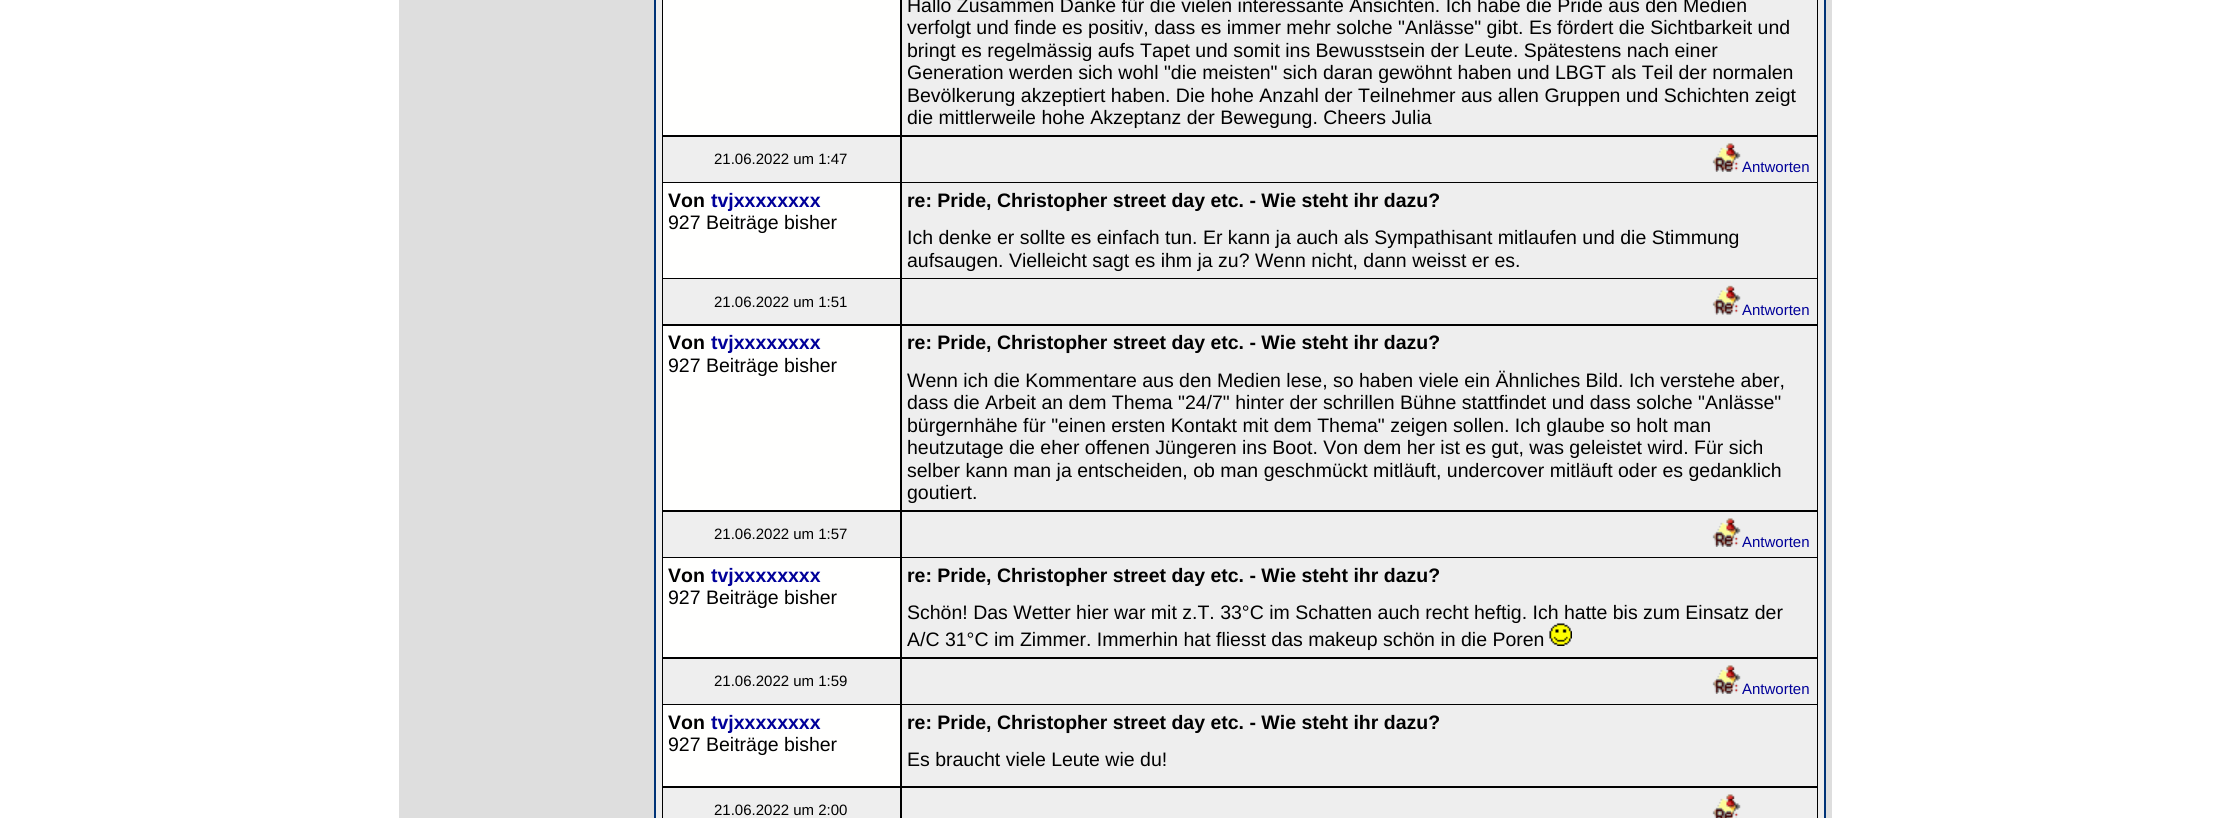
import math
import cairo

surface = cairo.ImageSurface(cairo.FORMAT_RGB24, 2229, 818)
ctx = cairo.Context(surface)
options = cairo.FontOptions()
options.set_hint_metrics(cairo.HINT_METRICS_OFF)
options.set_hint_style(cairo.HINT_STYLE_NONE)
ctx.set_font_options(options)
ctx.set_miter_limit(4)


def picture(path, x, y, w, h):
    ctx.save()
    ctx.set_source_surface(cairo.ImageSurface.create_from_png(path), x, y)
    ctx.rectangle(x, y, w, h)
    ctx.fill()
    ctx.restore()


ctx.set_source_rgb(1, 1, 1)
ctx.paint()
ctx.set_source_rgb(0.871, 0.871, 0.871)
ctx.rectangle(399, 0, 1433, 818)
ctx.fill()
ctx.set_source_rgb(0, 0.2, 0.467)
ctx.rectangle(654, 0, 1172, 818)
ctx.fill()
ctx.set_source_rgb(0.933, 0.933, 0.933)
ctx.rectangle(656, 0, 1168, 818)
ctx.fill()
ctx.set_source_rgb(0, 0, 0)
ctx.rectangle(662, 0, 1156, 818)
ctx.fill()
ctx.set_source_rgb(1, 1, 0.996)
ctx.rectangle(663, 0, 237, 135)
ctx.fill()
ctx.set_source_rgb(0.933, 0.933, 0.933)
ctx.rectangle(902, 0, 915, 135)
ctx.fill()
ctx.select_font_face("Liberation Sans")
ctx.set_font_size(19.5)
ctx.set_source_rgb(0, 0, 0)
ctx.move_to(907, 12)
ctx.show_text("Hallo Zusammen Danke für die vielen interessante Ansichten. Ich habe die Pride aus den Medien")
ctx.move_to(907, 34)
ctx.show_text("verfolgt und finde es positiv, dass es immer mehr solche \"Anlässe\" gibt. Es fördert die Sichtbarkeit und")
ctx.move_to(907, 57)
ctx.show_text("bringt es regelmässig aufs Tapet und somit ins Bewusstsein der Leute. Spätestens nach einer")
ctx.move_to(907, 79)
ctx.show_text("Generation werden sich wohl \"die meisten\" sich daran gewöhnt haben und LBGT als Teil der normalen")
ctx.move_to(907, 102)
ctx.show_text("Bevölkerung akzeptiert haben. Die hohe Anzahl der Teilnehmer aus allen Gruppen und Schichten zeigt")
ctx.move_to(907, 124)
ctx.show_text("die mittlerweile hohe Akzeptanz der Bewegung. Cheers Julia")
ctx.set_source_rgb(0.933, 0.933, 0.933)
ctx.rectangle(663, 137, 237, 45)
ctx.fill()
ctx.set_font_size(15)
ctx.set_source_rgb(0, 0, 0)
ctx.move_to(714, 164)
ctx.show_text("21.06.2022 um 1:47")
ctx.set_source_rgb(0.933, 0.933, 0.933)
ctx.rectangle(902, 137, 915, 45)
ctx.fill()
picture("img1.png", 1712, 143, 29, 29)
ctx.set_source_rgb(0, 0, 0.6)
ctx.move_to(1742, 172)
ctx.show_text("Antworten")
ctx.set_source_rgb(1, 1, 0.996)
ctx.rectangle(663, 183, 237, 95)
ctx.fill()
ctx.select_font_face("Liberation Sans", cairo.FONT_SLANT_NORMAL, cairo.FONT_WEIGHT_BOLD)
ctx.set_font_size(19.5)
ctx.set_source_rgb(0, 0, 0)
ctx.move_to(668, 207)
ctx.show_text("Von")
ctx.set_source_rgb(0, 0, 0.6)
ctx.move_to(711, 207)
ctx.show_text("tvjxxxxxxxx")
ctx.select_font_face("Liberation Sans")
ctx.set_source_rgb(0, 0, 0)
ctx.move_to(668, 229)
ctx.show_text("927 Beiträge bisher")
ctx.set_source_rgb(0.933, 0.933, 0.933)
ctx.rectangle(902, 183, 915, 95)
ctx.fill()
ctx.select_font_face("Liberation Sans", cairo.FONT_SLANT_NORMAL, cairo.FONT_WEIGHT_BOLD)
ctx.set_source_rgb(0, 0, 0)
ctx.move_to(907, 207)
ctx.show_text("re: Pride, Christopher street day etc. - Wie steht ihr dazu?")
ctx.select_font_face("Liberation Sans")
ctx.move_to(907, 244)
ctx.show_text("Ich denke er sollte es einfach tun. Er kann ja auch als Sympathisant mitlaufen und die Stimmung")
ctx.move_to(907, 267)
ctx.show_text("aufsaugen. Vielleicht sagt es ihm ja zu? Wenn nicht, dann weisst er es.")
ctx.set_source_rgb(0.933, 0.933, 0.933)
ctx.rectangle(663, 279, 237, 45)
ctx.fill()
ctx.set_font_size(15)
ctx.set_source_rgb(0, 0, 0)
ctx.move_to(714, 307)
ctx.show_text("21.06.2022 um 1:51")
ctx.set_source_rgb(0.933, 0.933, 0.933)
ctx.rectangle(902, 279, 915, 45)
ctx.fill()
picture("img2.png", 1712, 285, 29, 30)
ctx.set_source_rgb(0, 0, 0.6)
ctx.move_to(1742, 315)
ctx.show_text("Antworten")
ctx.set_source_rgb(1, 1, 0.996)
ctx.rectangle(663, 326, 237, 184)
ctx.fill()
ctx.select_font_face("Liberation Sans", cairo.FONT_SLANT_NORMAL, cairo.FONT_WEIGHT_BOLD)
ctx.set_font_size(19.5)
ctx.set_source_rgb(0, 0, 0)
ctx.move_to(668, 349)
ctx.show_text("Von")
ctx.set_source_rgb(0, 0, 0.6)
ctx.move_to(711, 349)
ctx.show_text("tvjxxxxxxxx")
ctx.select_font_face("Liberation Sans")
ctx.set_source_rgb(0, 0, 0)
ctx.move_to(668, 372)
ctx.show_text("927 Beiträge bisher")
ctx.set_source_rgb(0.933, 0.933, 0.933)
ctx.rectangle(902, 326, 915, 184)
ctx.fill()
ctx.select_font_face("Liberation Sans", cairo.FONT_SLANT_NORMAL, cairo.FONT_WEIGHT_BOLD)
ctx.set_source_rgb(0, 0, 0)
ctx.move_to(907, 349)
ctx.show_text("re: Pride, Christopher street day etc. - Wie steht ihr dazu?")
ctx.select_font_face("Liberation Sans")
ctx.move_to(907, 387)
ctx.show_text("Wenn ich die Kommentare aus den Medien lese, so haben viele ein Ähnliches Bild. Ich verstehe aber,")
ctx.move_to(907, 409)
ctx.show_text("dass die Arbeit an dem Thema \"24/7\" hinter der schrillen Bühne stattfindet und dass solche \"Anlässe\"")
ctx.move_to(907, 432)
ctx.show_text("bürgernhähe für \"einen ersten Kontakt mit dem Thema\" zeigen sollen. Ich glaube so holt man")
ctx.move_to(907, 454)
ctx.show_text("heutzutage die eher offenen Jüngeren ins Boot. Von dem her ist es gut, was geleistet wird. Für sich")
ctx.move_to(907, 477)
ctx.show_text("selber kann man ja entscheiden, ob man geschmückt mitläuft, undercover mitläuft oder es gedanklich")
ctx.move_to(907, 499)
ctx.show_text("goutiert.")
ctx.set_source_rgb(0.933, 0.933, 0.933)
ctx.rectangle(663, 512, 237, 45)
ctx.fill()
ctx.set_font_size(15)
ctx.set_source_rgb(0, 0, 0)
ctx.move_to(714, 539)
ctx.show_text("21.06.2022 um 1:57")
ctx.set_source_rgb(0.933, 0.933, 0.933)
ctx.rectangle(902, 512, 915, 45)
ctx.fill()
picture("img1.png", 1712, 518, 29, 29)
ctx.set_source_rgb(0, 0, 0.6)
ctx.move_to(1742, 547)
ctx.show_text("Antworten")
ctx.set_source_rgb(1, 1, 0.996)
ctx.rectangle(663, 558, 237, 99)
ctx.fill()
ctx.select_font_face("Liberation Sans", cairo.FONT_SLANT_NORMAL, cairo.FONT_WEIGHT_BOLD)
ctx.set_font_size(19.5)
ctx.set_source_rgb(0, 0, 0)
ctx.move_to(668, 582)
ctx.show_text("Von")
ctx.set_source_rgb(0, 0, 0.6)
ctx.move_to(711, 582)
ctx.show_text("tvjxxxxxxxx")
ctx.select_font_face("Liberation Sans")
ctx.set_source_rgb(0, 0, 0)
ctx.move_to(668, 604)
ctx.show_text("927 Beiträge bisher")
ctx.set_source_rgb(0.933, 0.933, 0.933)
ctx.rectangle(902, 558, 915, 99)
ctx.fill()
ctx.select_font_face("Liberation Sans", cairo.FONT_SLANT_NORMAL, cairo.FONT_WEIGHT_BOLD)
ctx.set_source_rgb(0, 0, 0)
ctx.move_to(907, 582)
ctx.show_text("re: Pride, Christopher street day etc. - Wie steht ihr dazu?")
ctx.select_font_face("Liberation Sans")
ctx.move_to(907, 619)
ctx.show_text("Schön! Das Wetter hier war mit z.T. 33°C im Schatten auch recht heftig. Ich hatte bis zum Einsatz der")
ctx.move_to(907, 646)
ctx.show_text("A/C 31°C im Zimmer. Immerhin hat fliesst das makeup schön in die Poren")
picture("img3.png", 1549, 623, 23, 23)
ctx.set_source_rgb(0.933, 0.933, 0.933)
ctx.rectangle(663, 659, 237, 45)
ctx.fill()
ctx.set_font_size(15)
ctx.set_source_rgb(0, 0, 0)
ctx.move_to(714, 686)
ctx.show_text("21.06.2022 um 1:59")
ctx.set_source_rgb(0.933, 0.933, 0.933)
ctx.rectangle(902, 659, 915, 45)
ctx.fill()
picture("img1.png", 1712, 665, 29, 29)
ctx.set_source_rgb(0, 0, 0.6)
ctx.move_to(1742, 694)
ctx.show_text("Antworten")
ctx.set_source_rgb(1, 1, 0.996)
ctx.rectangle(663, 705, 237, 81)
ctx.fill()
ctx.select_font_face("Liberation Sans", cairo.FONT_SLANT_NORMAL, cairo.FONT_WEIGHT_BOLD)
ctx.set_font_size(19.5)
ctx.set_source_rgb(0, 0, 0)
ctx.move_to(668, 729)
ctx.show_text("Von")
ctx.set_source_rgb(0, 0, 0.6)
ctx.move_to(711, 729)
ctx.show_text("tvjxxxxxxxx")
ctx.select_font_face("Liberation Sans")
ctx.set_source_rgb(0, 0, 0)
ctx.move_to(668, 751)
ctx.show_text("927 Beiträge bisher")
ctx.set_source_rgb(0.933, 0.933, 0.933)
ctx.rectangle(902, 705, 915, 81)
ctx.fill()
ctx.select_font_face("Liberation Sans", cairo.FONT_SLANT_NORMAL, cairo.FONT_WEIGHT_BOLD)
ctx.set_source_rgb(0, 0, 0)
ctx.move_to(907, 729)
ctx.show_text("re: Pride, Christopher street day etc. - Wie steht ihr dazu?")
ctx.select_font_face("Liberation Sans")
ctx.move_to(907, 766)
ctx.show_text("Es braucht viele Leute wie du!")
ctx.set_source_rgb(0.933, 0.933, 0.933)
ctx.rectangle(663, 788, 237, 30)
ctx.fill()
ctx.set_font_size(15)
ctx.set_source_rgb(0, 0, 0)
ctx.move_to(714, 815)
ctx.show_text("21.06.2022 um 2:00")
ctx.set_source_rgb(0.933, 0.933, 0.933)
ctx.rectangle(902, 788, 915, 30)
ctx.fill()
picture("img4.png", 1712, 794, 29, 24)
surface.write_to_png("page.png")
